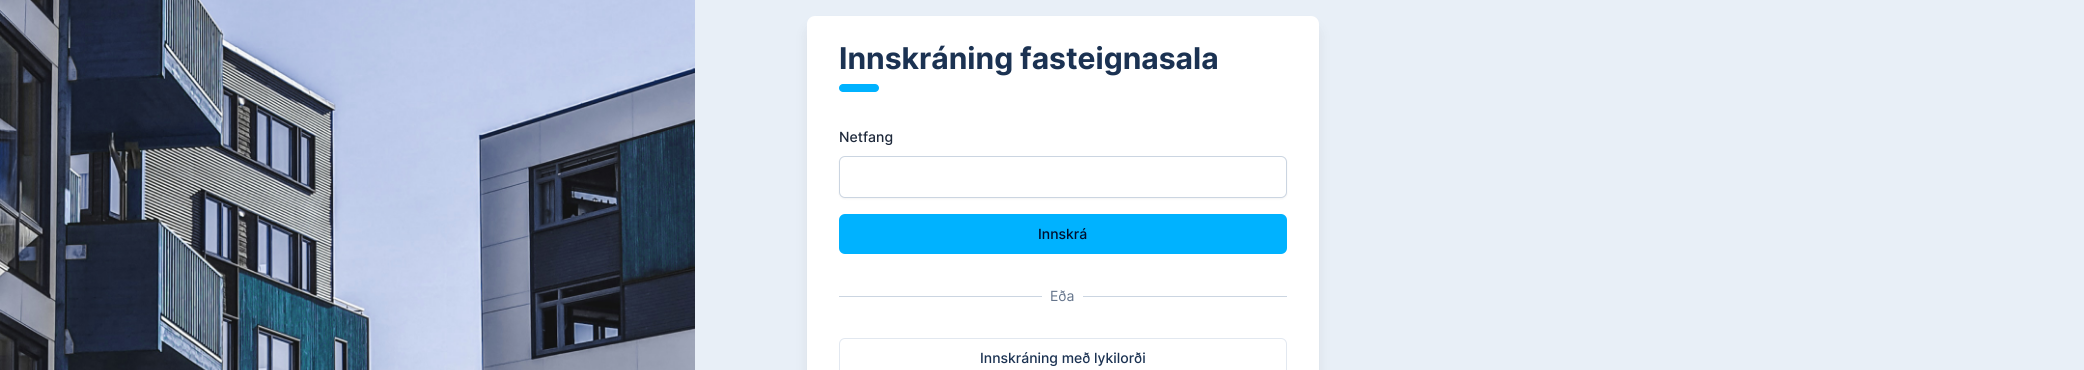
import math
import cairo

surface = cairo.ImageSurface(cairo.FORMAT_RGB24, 2084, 370)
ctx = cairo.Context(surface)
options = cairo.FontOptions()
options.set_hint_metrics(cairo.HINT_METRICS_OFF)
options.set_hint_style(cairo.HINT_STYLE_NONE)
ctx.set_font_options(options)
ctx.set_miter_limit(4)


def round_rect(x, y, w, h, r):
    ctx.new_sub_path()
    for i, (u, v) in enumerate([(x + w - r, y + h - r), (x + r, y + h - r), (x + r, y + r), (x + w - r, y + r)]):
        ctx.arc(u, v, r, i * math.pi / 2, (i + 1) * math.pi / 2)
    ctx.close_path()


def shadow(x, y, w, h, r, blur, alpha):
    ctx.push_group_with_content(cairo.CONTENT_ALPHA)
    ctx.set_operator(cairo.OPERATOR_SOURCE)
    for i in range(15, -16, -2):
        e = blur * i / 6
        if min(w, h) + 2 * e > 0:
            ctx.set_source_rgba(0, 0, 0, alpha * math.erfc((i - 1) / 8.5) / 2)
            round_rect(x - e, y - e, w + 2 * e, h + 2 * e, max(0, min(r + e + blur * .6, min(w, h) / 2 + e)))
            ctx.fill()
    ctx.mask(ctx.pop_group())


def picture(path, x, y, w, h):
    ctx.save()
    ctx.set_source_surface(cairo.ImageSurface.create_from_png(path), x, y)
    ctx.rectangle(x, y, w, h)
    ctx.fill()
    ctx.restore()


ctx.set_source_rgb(0.91, 0.937, 0.965)
ctx.paint()
picture("img1.png", 0, 0, 695, 370)
ctx.set_source_rgb(0, 0, 0)
shadow(810, 29, 506, 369, 5, 7.5, 0.1)
ctx.set_source_rgb(1, 1, 1)
round_rect(807, 16, 512, 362, 8)
ctx.fill()
ctx.select_font_face("Inter", cairo.FONT_SLANT_NORMAL, cairo.FONT_WEIGHT_BOLD)
ctx.set_font_size(30)
ctx.set_source_rgb(0.106, 0.196, 0.322)
ctx.move_to(839, 69)
ctx.show_text("Innskráning fasteignasala")
ctx.set_source_rgb(0, 0.698, 1)
round_rect(839, 84, 40, 8, 4)
ctx.fill()
ctx.select_font_face("Inter Medium")
ctx.set_font_size(14)
ctx.set_source_rgb(0.118, 0.161, 0.231)
ctx.move_to(839, 142)
ctx.show_text("Netfang")
ctx.set_source_rgb(0, 0, 0)
shadow(839, 157, 448, 42, 6, 1, 0.05)
ctx.set_source_rgb(1, 1, 1)
round_rect(839.5, 156.5, 447, 41, 5.5)
ctx.fill_preserve()
ctx.set_source_rgb(0.796, 0.835, 0.882)
ctx.set_line_width(1)
ctx.stroke()
ctx.set_source_rgb(0, 0.698, 1)
round_rect(839, 214, 448, 40, 6)
ctx.fill()
ctx.set_source_rgb(0, 0.059, 0.18)
ctx.move_to(1038, 239)
ctx.show_text("Innskrá")
ctx.set_source_rgb(0.796, 0.835, 0.882)
ctx.rectangle(839, 296, 448, 1)
ctx.fill()
ctx.set_source_rgb(1, 1, 1)
ctx.rectangle(1042, 296, 41, 1)
ctx.fill()
ctx.select_font_face("Inter")
ctx.set_source_rgb(0.392, 0.455, 0.545)
ctx.move_to(1050, 301)
ctx.show_text("Eða")
round_rect(839.5, 338.5, 447, 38, 5.5)
ctx.set_source_rgb(0.886, 0.91, 0.941)
ctx.stroke()
ctx.select_font_face("Inter Medium")
ctx.set_source_rgb(0.106, 0.196, 0.322)
ctx.move_to(980, 363)
ctx.show_text("Innskráning með lykilorði")
surface.write_to_png("page.png")
